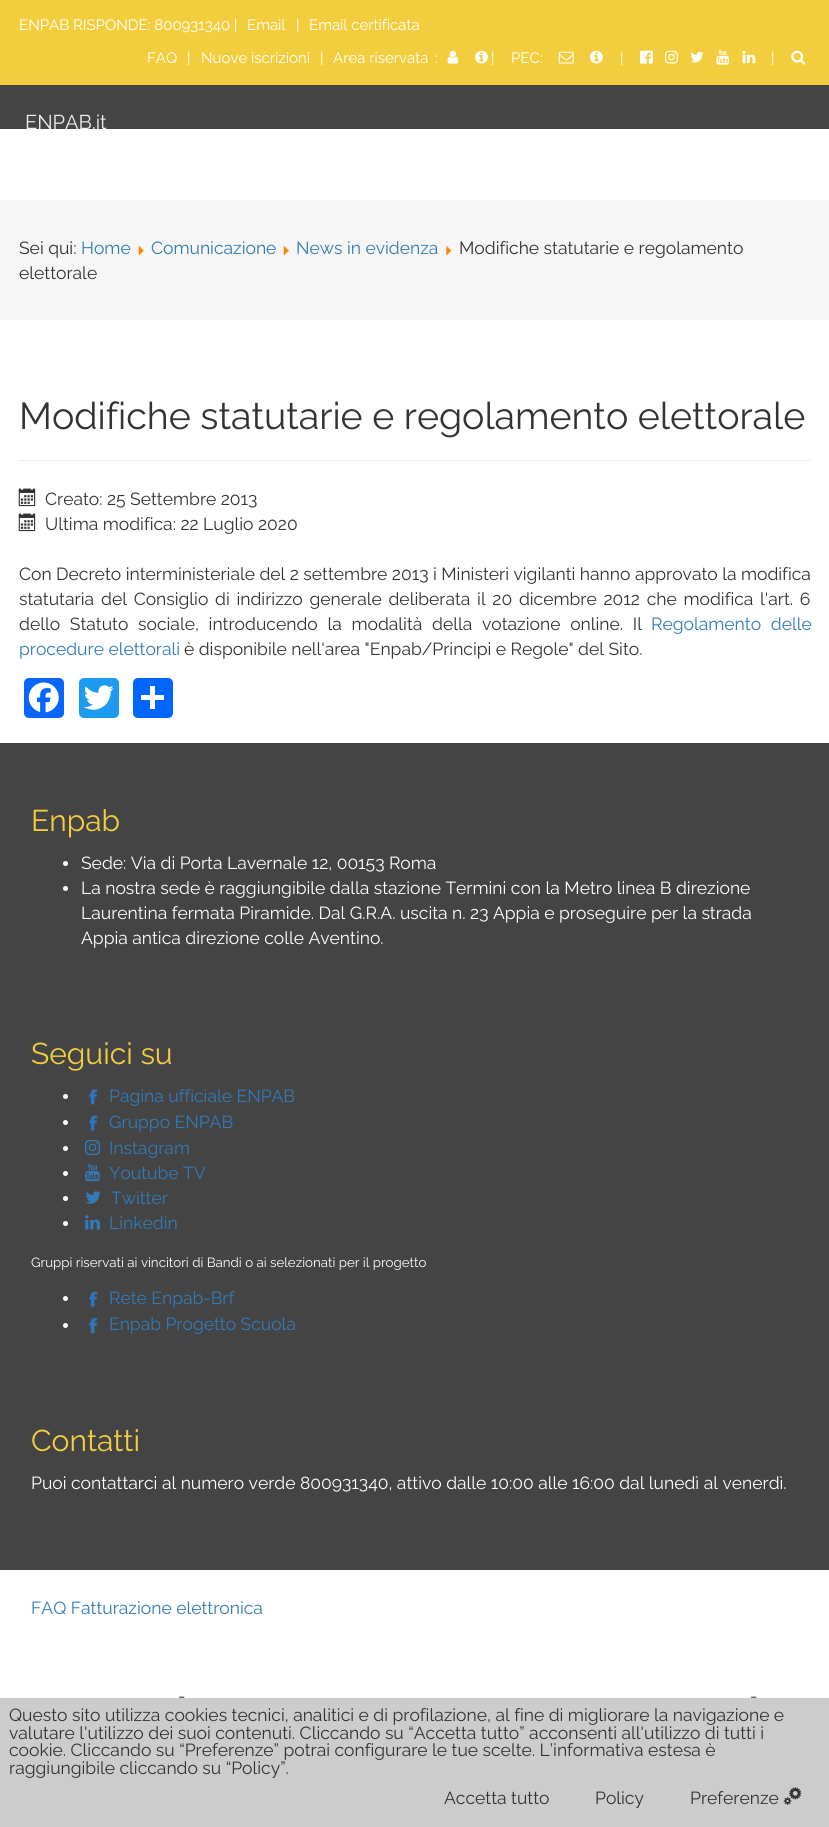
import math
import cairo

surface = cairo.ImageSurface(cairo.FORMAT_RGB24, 829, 1827)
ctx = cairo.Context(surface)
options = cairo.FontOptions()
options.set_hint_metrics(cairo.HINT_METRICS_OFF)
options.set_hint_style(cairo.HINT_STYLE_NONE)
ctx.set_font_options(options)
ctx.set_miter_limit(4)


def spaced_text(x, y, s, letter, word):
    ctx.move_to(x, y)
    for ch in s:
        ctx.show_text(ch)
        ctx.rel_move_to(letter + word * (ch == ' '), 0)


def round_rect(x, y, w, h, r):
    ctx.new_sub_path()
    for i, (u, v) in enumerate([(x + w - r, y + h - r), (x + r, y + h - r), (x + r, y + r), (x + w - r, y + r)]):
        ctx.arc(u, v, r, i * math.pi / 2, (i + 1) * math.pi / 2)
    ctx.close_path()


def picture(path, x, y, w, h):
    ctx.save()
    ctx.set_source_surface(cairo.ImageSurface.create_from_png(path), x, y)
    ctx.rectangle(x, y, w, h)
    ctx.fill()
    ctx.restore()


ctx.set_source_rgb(1, 1, 1)
ctx.paint()
ctx.set_source_rgb(0.949, 0.808, 0.247)
ctx.rectangle(0, 0, 829, 85)
ctx.fill()
ctx.select_font_face("Raleway")
ctx.set_font_size(15)
ctx.set_source_rgb(1, 1, 1)
ctx.move_to(19, 30)
ctx.show_text("ENPAB RISPONDE: 800931340 |")
ctx.move_to(247, 30)
ctx.show_text("Email")
ctx.move_to(296, 30)
ctx.show_text("|")
ctx.move_to(309, 30)
ctx.show_text("Email certificata")
ctx.move_to(147, 63)
ctx.show_text("FAQ")
ctx.move_to(187, 63)
ctx.show_text("|")
ctx.move_to(201, 63)
ctx.show_text("Nuove iscrizioni")
ctx.move_to(320, 63)
ctx.show_text("|")
ctx.move_to(333, 63)
ctx.show_text("Area riservata")
ctx.move_to(435, 63)
ctx.show_text(":")
picture("img1.png", 447, 50, 12, 14)
picture("img2.png", 475, 50, 13, 14)
ctx.move_to(491, 63)
ctx.show_text("|")
ctx.move_to(511, 63)
ctx.show_text("PEC:")
picture("img3.png", 558, 51, 16, 13)
picture("img2.png", 590, 50, 13, 14)
ctx.move_to(620, 63)
ctx.show_text("|")
picture("img4.png", 640, 50, 13, 14)
picture("img5.png", 665, 50, 13, 14)
picture("img6.png", 690, 51, 14, 12)
picture("img7.png", 716, 49, 13, 16)
picture("img8.png", 742, 50, 14, 14)
ctx.move_to(771, 63)
ctx.show_text("|")
picture("img9.png", 791, 50, 15, 15)
ctx.set_source_rgb(0.267, 0.267, 0.267)
ctx.rectangle(0, 85, 829, 44)
ctx.fill()
ctx.set_font_size(20)
ctx.set_source_rgb(0.933, 0.933, 0.933)
ctx.move_to(25, 129)
ctx.show_text("ENPAB.it")
ctx.set_source_rgb(0.961, 0.961, 0.961)
ctx.rectangle(0, 200, 829, 120)
ctx.fill()
ctx.set_font_size(17.5)
ctx.set_source_rgb(0.2, 0.2, 0.2)
ctx.move_to(19, 254)
ctx.show_text("Sei qui:")
ctx.set_source_rgb(0.2, 0.478, 0.718)
ctx.move_to(81, 254)
ctx.show_text("Home")
picture("img10.png", 138, 246, 6, 9)
ctx.move_to(151, 254)
ctx.show_text("Comunicazione")
picture("img11.png", 283, 246, 6, 9)
ctx.move_to(296, 254)
ctx.show_text("News in evidenza")
picture("img12.png", 446, 246, 6, 9)
ctx.set_source_rgb(0.2, 0.2, 0.2)
ctx.move_to(459, 254)
ctx.show_text("Modifiche statutarie e regolamento")
ctx.move_to(19, 279)
ctx.show_text("elettorale")
ctx.set_source_rgb(0.933, 0.933, 0.933)
ctx.rectangle(19, 460, 792, 1)
ctx.fill()
ctx.set_font_size(37.5)
ctx.set_source_rgb(0.2, 0.2, 0.2)
ctx.move_to(19, 429)
ctx.show_text("Modifiche statutarie e regolamento elettorale")
picture("img13.png", 18, 488, 18, 19)
ctx.set_font_size(17.5)
ctx.move_to(45, 505)
ctx.show_text("Creato: 25 Settembre 2013")
picture("img13.png", 18, 513, 18, 19)
ctx.move_to(45, 530)
ctx.show_text("Ultima modifica: 22 Luglio 2020")
ctx.move_to(19, 580)
ctx.show_text("Con Decreto interministeriale del 2 settembre 2013 i Ministeri vigilanti hanno approvato la modifica")
ctx.move_to(19, 605)
ctx.show_text("statutaria")
spaced_text(101, 605, "del Consiglio di indirizzo generale deliberata il 20 dicembre 2012 che modifica l'art. 6", 0, 2.25)
spaced_text(19, 630, "dello Statuto sociale, introducendo la modalità della votazione online. Il", 0, 5.25)
ctx.set_source_rgb(0.2, 0.478, 0.718)
spaced_text(651, 630, "Regolamento delle", 0, 5.25)
ctx.move_to(19, 655)
ctx.show_text("procedure elettorali")
ctx.set_source_rgb(0.2, 0.2, 0.2)
ctx.move_to(184, 655)
ctx.show_text("è disponibile nell'area \"Enpab/Principi e Regole\" del Sito.")
ctx.set_source_rgb(0.031, 0.4, 1)
round_rect(24, 678, 40, 40, 5)
ctx.fill()
picture("img14.png", 28, 682, 31, 31)
ctx.set_source_rgb(0.114, 0.608, 0.941)
round_rect(79, 678, 40, 40, 5)
ctx.fill()
picture("img15.png", 84, 685, 30, 25)
ctx.set_source_rgb(0.004, 0.4, 1)
round_rect(133, 678, 40, 40, 5)
ctx.fill()
ctx.set_source_rgb(1, 1, 1)
ctx.rectangle(150, 686, 5, 23)
ctx.fill()
ctx.rectangle(141, 695, 23, 5)
ctx.fill()
ctx.set_source_rgb(0.267, 0.267, 0.267)
ctx.rectangle(0, 743, 829, 827)
ctx.fill()
ctx.set_font_size(30)
ctx.set_source_rgb(0.949, 0.808, 0.247)
ctx.move_to(31, 831)
ctx.show_text("Enpab")
ctx.set_source_rgb(1, 1, 1)
ctx.new_path()
ctx.arc(65.5, 863.5, 2.5, 0, 2 * math.pi)
ctx.fill()
ctx.set_font_size(17.5)
ctx.move_to(81, 869)
ctx.show_text("Sede: Via di Porta Lavernale 12, 00153 Roma")
ctx.new_path()
ctx.arc(65.5, 888.5, 2.5, 0, 2 * math.pi)
ctx.fill()
ctx.move_to(81, 894)
ctx.show_text("La nostra sede è raggiungibile dalla stazione Termini con la Metro linea B direzione")
ctx.move_to(81, 919)
ctx.show_text("Laurentina fermata Piramide. Dal G.R.A. uscita n. 23 Appia e proseguire per la strada")
ctx.move_to(81, 944)
ctx.show_text("Appia antica direzione colle Aventino.")
ctx.set_font_size(30)
ctx.set_source_rgb(0.949, 0.808, 0.247)
ctx.move_to(31, 1064)
ctx.show_text("Seguici su")
ctx.set_source_rgb(1, 1, 1)
ctx.new_path()
ctx.arc(65.5, 1096.5, 2.5, 0, 2 * math.pi)
ctx.fill()
picture("img16.png", 88, 1088, 10, 17)
ctx.set_font_size(17.5)
ctx.set_source_rgb(0.2, 0.478, 0.718)
ctx.move_to(109, 1102)
ctx.show_text("Pagina ufficiale ENPAB")
ctx.set_source_rgb(1, 1, 1)
ctx.new_path()
ctx.arc(65.5, 1122.5, 2.5, 0, 2 * math.pi)
ctx.fill()
picture("img17.png", 88, 1115, 10, 17)
ctx.set_source_rgb(0.2, 0.478, 0.718)
ctx.move_to(109, 1128)
ctx.show_text("Gruppo ENPAB")
ctx.set_source_rgb(1, 1, 1)
ctx.new_path()
ctx.arc(65.5, 1148.5, 2.5, 0, 2 * math.pi)
ctx.fill()
picture("img18.png", 85, 1140, 15, 15)
ctx.set_source_rgb(0.2, 0.478, 0.718)
ctx.move_to(109, 1154)
ctx.show_text("Instagram")
ctx.set_source_rgb(1, 1, 1)
ctx.new_path()
ctx.arc(65.5, 1173.5, 2.5, 0, 2 * math.pi)
ctx.fill()
picture("img19.png", 85, 1163, 15, 19)
ctx.set_source_rgb(0.2, 0.478, 0.718)
ctx.move_to(109, 1179)
ctx.show_text("Youtube TV")
ctx.set_source_rgb(1, 1, 1)
ctx.new_path()
ctx.arc(65.5, 1198.5, 2.5, 0, 2 * math.pi)
ctx.fill()
picture("img20.png", 85, 1191, 16, 13)
ctx.set_source_rgb(0.2, 0.478, 0.718)
ctx.move_to(111, 1204)
ctx.show_text("Twitter")
ctx.set_source_rgb(1, 1, 1)
ctx.new_path()
ctx.arc(65.5, 1223.5, 2.5, 0, 2 * math.pi)
ctx.fill()
picture("img21.png", 85, 1215, 15, 15)
ctx.set_source_rgb(0.2, 0.478, 0.718)
ctx.move_to(109, 1229)
ctx.show_text("Linkedin")
ctx.set_font_size(13.3)
ctx.set_source_rgb(1, 1, 1)
ctx.move_to(31, 1267)
ctx.show_text("Gruppi riservati ai vincitori di Bandi o ai selezionati per il progetto")
ctx.new_path()
ctx.arc(65.5, 1298.5, 2.5, 0, 2 * math.pi)
ctx.fill()
picture("img22.png", 88, 1291, 10, 17)
ctx.set_font_size(17.5)
ctx.set_source_rgb(0.2, 0.478, 0.718)
ctx.move_to(109, 1304)
ctx.show_text("Rete Enpab-Brf")
ctx.set_source_rgb(1, 1, 1)
ctx.new_path()
ctx.arc(65.5, 1325.5, 2.5, 0, 2 * math.pi)
ctx.fill()
picture("img23.png", 88, 1317, 10, 17)
ctx.set_source_rgb(0.2, 0.478, 0.718)
ctx.move_to(109, 1330)
ctx.show_text("Enpab Progetto Scuola")
ctx.set_font_size(30)
ctx.set_source_rgb(0.949, 0.808, 0.247)
ctx.move_to(31, 1451)
ctx.show_text("Contatti")
ctx.set_font_size(17.5)
ctx.set_source_rgb(1, 1, 1)
ctx.move_to(31, 1489)
ctx.show_text("Puoi contattarci al numero verde 800931340, attivo dalle 10:00 alle 16:00 dal lunedì al venerdì.")
ctx.set_source_rgb(0.2, 0.478, 0.718)
ctx.move_to(31, 1614)
ctx.show_text("FAQ Fatturazione elettronica")
ctx.set_source_rgb(0.2, 0.2, 0.2)
ctx.move_to(178, 1702)
ctx.show_text("-")
ctx.move_to(750, 1702)
ctx.show_text("-")
ctx.set_source_rgb(0.8, 0.8, 0.8)
ctx.rectangle(0, 1698, 829, 129)
ctx.fill()
ctx.set_source_rgb(0.2, 0.2, 0.2)
ctx.move_to(9, 1721)
ctx.show_text("Questo sito utilizza cookies tecnici, analitici e di profilazione, al fine di migliorare la navigazione e")
ctx.move_to(9, 1739)
ctx.show_text("valutare l'utilizzo dei suoi contenuti. Cliccando su “Accetta tutto” acconsenti all'utilizzo di tutti i")
ctx.move_to(9, 1756)
ctx.show_text("cookie. Cliccando su “Preferenze” potrai configurare le tue scelte. L’informativa estesa è")
ctx.move_to(9, 1774)
ctx.show_text("raggiungibile cliccando su “Policy”.")
ctx.move_to(444, 1804)
ctx.show_text("Accetta tutto")
ctx.move_to(595, 1804)
ctx.show_text("Policy")
ctx.move_to(690, 1804)
ctx.show_text("Preferenze")
picture("img24.png", 783, 1787, 19, 18)
surface.write_to_png("page.png")
